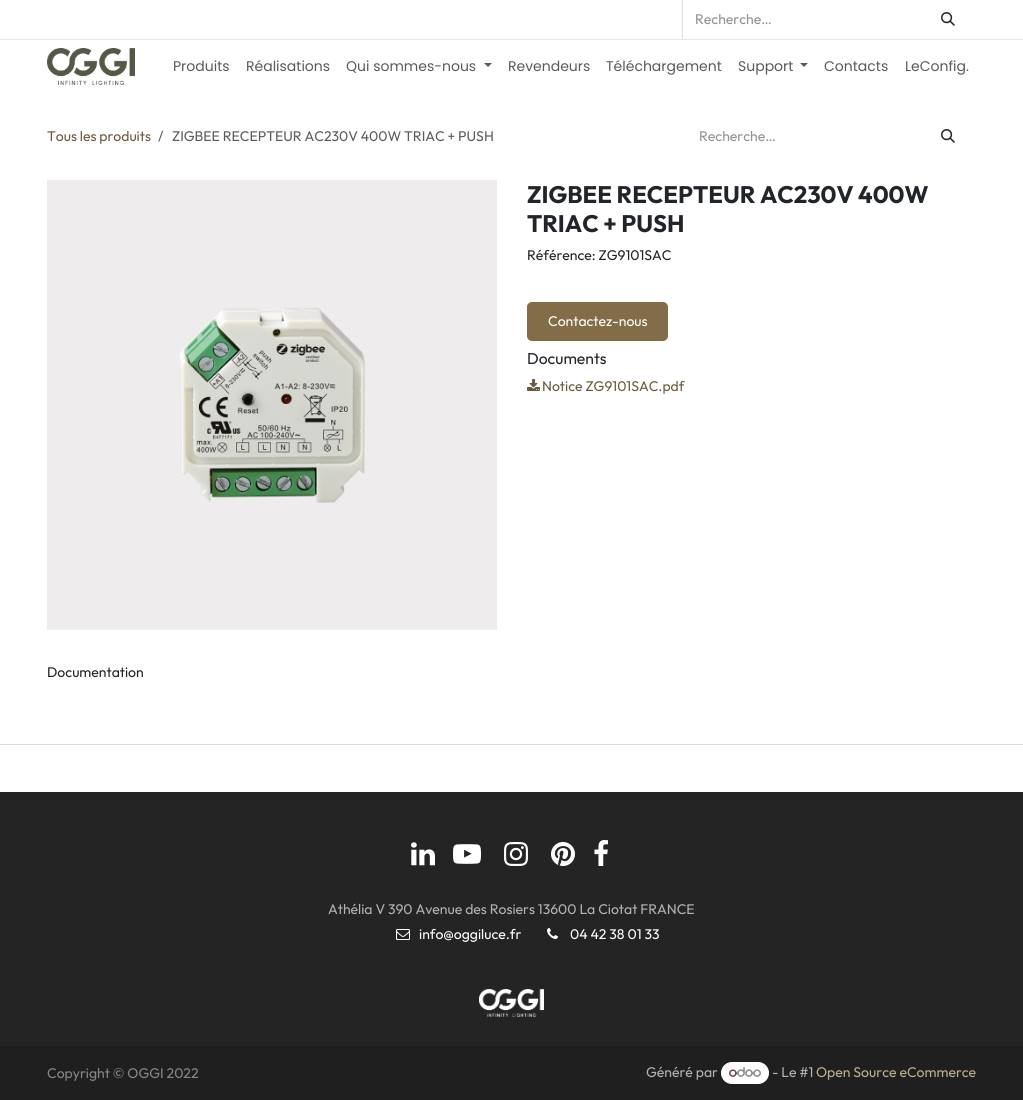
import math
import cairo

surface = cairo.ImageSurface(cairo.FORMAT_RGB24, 1023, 1100)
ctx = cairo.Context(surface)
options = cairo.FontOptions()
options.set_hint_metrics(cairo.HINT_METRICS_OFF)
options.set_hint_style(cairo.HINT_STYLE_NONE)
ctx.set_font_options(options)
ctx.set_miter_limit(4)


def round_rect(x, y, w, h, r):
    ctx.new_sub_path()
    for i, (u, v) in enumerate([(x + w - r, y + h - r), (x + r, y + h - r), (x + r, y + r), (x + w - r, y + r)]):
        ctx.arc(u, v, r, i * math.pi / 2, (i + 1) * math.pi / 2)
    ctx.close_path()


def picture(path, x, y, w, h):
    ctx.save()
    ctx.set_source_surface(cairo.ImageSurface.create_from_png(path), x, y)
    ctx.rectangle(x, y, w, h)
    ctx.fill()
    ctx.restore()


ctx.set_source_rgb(1, 1, 1)
ctx.paint()
ctx.set_source_rgb(0.902, 0.902, 0.902)
ctx.rectangle(0, 39, 1023, 1)
ctx.fill()
ctx.set_source_rgb(0.871, 0.871, 0.875)
ctx.rectangle(682, 0, 1, 39)
ctx.fill()
ctx.select_font_face("Outfit")
ctx.set_font_size(14)
ctx.set_source_rgb(0.565, 0.573, 0.58)
ctx.move_to(695, 24)
ctx.show_text("Recherche…")
picture("img1.png", 941, 12, 14, 14)
picture("img2.png", 47, 48, 88, 37)
ctx.select_font_face("Poppins")
ctx.set_source_rgb(0.349, 0.349, 0.349)
ctx.move_to(173, 71)
ctx.show_text("Produits")
ctx.move_to(246, 71)
ctx.show_text("Réalisations")
ctx.move_to(346, 71)
ctx.show_text("Qui sommes-nous")
ctx.new_path()
ctx.move_to(484, 63)
ctx.line_to(492, 63)
ctx.line_to(488, 67)
ctx.close_path()
ctx.fill()
ctx.move_to(508, 71)
ctx.show_text("Revendeurs")
ctx.move_to(606, 71)
ctx.show_text("Téléchargement")
ctx.move_to(738, 71)
ctx.show_text("Support")
ctx.new_path()
ctx.move_to(800, 63)
ctx.line_to(808, 63)
ctx.line_to(804, 67)
ctx.close_path()
ctx.fill()
ctx.move_to(824, 71)
ctx.show_text("Contacts")
ctx.move_to(905, 71)
ctx.show_text("LeConfig.")
ctx.select_font_face("Outfit")
ctx.set_source_rgb(0.424, 0.353, 0.235)
ctx.move_to(47, 141)
ctx.show_text("Tous les produits")
ctx.set_source_rgb(0.349, 0.361, 0.373)
ctx.move_to(158, 141)
ctx.show_text("/")
ctx.move_to(172, 141)
ctx.show_text("ZIGBEE RECEPTEUR AC230V 400W TRIAC + PUSH")
ctx.set_source_rgb(0.565, 0.573, 0.58)
ctx.move_to(699, 141)
ctx.show_text("Recherche…")
picture("img1.png", 941, 129, 14, 14)
picture("img3.png", 47, 180, 450, 450)
ctx.select_font_face("Outfit", cairo.FONT_SLANT_NORMAL, cairo.FONT_WEIGHT_BOLD)
ctx.set_font_size(23.9)
ctx.set_source_rgb(0.129, 0.145, 0.161)
ctx.move_to(527, 203)
ctx.show_text("ZIGBEE RECEPTEUR AC230V 400W")
ctx.move_to(527, 232)
ctx.show_text("TRIAC + PUSH")
ctx.select_font_face("Outfit")
ctx.set_font_size(14)
ctx.move_to(527, 260)
ctx.show_text("Référence: ZG9101SAC")
ctx.set_source_rgb(0.514, 0.427, 0.286)
round_rect(527.5, 302.5, 140, 38, 4.5)
ctx.fill_preserve()
ctx.set_line_width(1)
ctx.stroke()
ctx.set_source_rgb(1, 1, 1)
ctx.move_to(548, 326)
ctx.show_text("Contactez-nous")
ctx.set_font_size(15.75)
ctx.set_source_rgb(0.129, 0.145, 0.161)
ctx.move_to(527, 364)
ctx.show_text("Documents")
picture("img4.png", 527, 379, 13, 12)
ctx.set_font_size(14)
ctx.set_source_rgb(0.424, 0.353, 0.235)
ctx.move_to(542, 391)
ctx.show_text("Notice ZG9101SAC.pdf")
ctx.set_source_rgb(0.129, 0.145, 0.161)
ctx.move_to(47, 677)
ctx.show_text("Documentation")
ctx.set_source_rgb(0.871, 0.871, 0.875)
ctx.rectangle(0, 744, 1023, 1)
ctx.fill()
ctx.set_source_rgb(0.145, 0.141, 0.141)
ctx.rectangle(0, 792, 1023, 254)
ctx.fill()
picture("img5.png", 411, 842, 24, 24)
picture("img6.png", 453, 844, 28, 20)
picture("img7.png", 504, 842, 24, 24)
picture("img8.png", 551, 842, 24, 24)
picture("img9.png", 594, 840, 14, 26)
ctx.set_source_rgb(0.698, 0.698, 0.698)
ctx.move_to(328, 914)
ctx.show_text("Athélia V 390 Avenue des Rosiers 13600 La Ciotat FRANCE")
picture("img10.png", 396, 929, 14, 11)
ctx.set_source_rgb(1, 1, 1)
ctx.move_to(419, 939)
ctx.show_text("info@oggiluce.fr")
picture("img11.png", 547, 928, 11, 11)
ctx.move_to(570, 939)
ctx.show_text("04 42 38 01 33")
picture("img12.png", 479, 989, 65, 28)
ctx.set_source_rgb(0.122, 0.122, 0.122)
ctx.rectangle(0, 1046, 1023, 54)
ctx.fill()
ctx.set_source_rgb(0.525, 0.525, 0.525)
ctx.move_to(47, 1078)
ctx.show_text("Copyright © OGGI 2022")
ctx.set_source_rgb(0.698, 0.698, 0.698)
ctx.move_to(646, 1077)
ctx.show_text("Généré par")
ctx.set_source_rgb(1, 1, 1)
round_rect(721.5, 1062.5, 47, 21, 10.5)
ctx.fill_preserve()
ctx.stroke()
picture("img13.png", 729, 1067, 32, 10)
ctx.set_source_rgb(0.698, 0.698, 0.698)
ctx.move_to(772, 1077)
ctx.show_text("- Le #1")
ctx.set_source_rgb(0.749, 0.675, 0.549)
ctx.move_to(816, 1077)
ctx.show_text("Open Source eCommerce")
surface.write_to_png("page.png")
